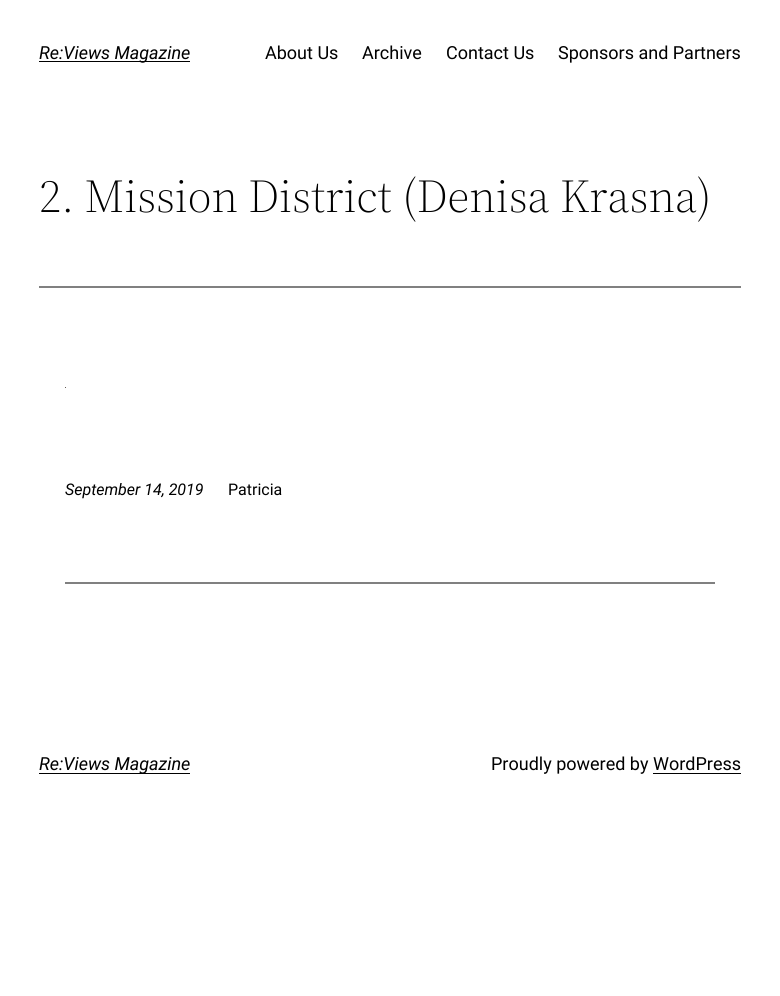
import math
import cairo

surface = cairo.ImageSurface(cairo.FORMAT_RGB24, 780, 996)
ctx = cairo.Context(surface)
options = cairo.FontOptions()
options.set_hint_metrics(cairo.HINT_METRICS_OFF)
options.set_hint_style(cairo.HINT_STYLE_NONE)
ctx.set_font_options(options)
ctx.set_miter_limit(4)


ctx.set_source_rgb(1, 1, 1)
ctx.paint()
ctx.set_source_rgb(0, 0, 0)
ctx.rectangle(39, 61, 151, 1)
ctx.fill()
ctx.select_font_face("Roboto", cairo.FONT_SLANT_ITALIC)
ctx.set_font_size(18)
ctx.move_to(39, 59)
ctx.show_text("Re:Views Magazine")
ctx.select_font_face("Roboto")
ctx.move_to(265, 59)
ctx.show_text("About Us")
ctx.move_to(362, 59)
ctx.show_text("Archive")
ctx.move_to(446, 59)
ctx.show_text("Contact Us")
ctx.move_to(558, 59)
ctx.show_text("Sponsors and Partners")
ctx.select_font_face("Source Serif 4 Light")
ctx.set_font_size(46.75)
ctx.move_to(39, 212)
ctx.show_text("2. Mission District (Denisa Krasna)")
ctx.set_source_rgb(0.502, 0.502, 0.502)
ctx.rectangle(39, 286, 702, 2)
ctx.fill()
ctx.set_source_rgb(0.388, 0.357, 0.333)
ctx.rectangle(65, 387, 1, 1)
ctx.fill()
ctx.select_font_face("Roboto", cairo.FONT_SLANT_ITALIC)
ctx.set_font_size(16)
ctx.set_source_rgb(0, 0, 0)
ctx.move_to(65, 495)
ctx.show_text("September 14, 2019")
ctx.select_font_face("Roboto")
ctx.move_to(228, 495)
ctx.show_text("Patricia")
ctx.set_source_rgb(0.502, 0.502, 0.502)
ctx.rectangle(65, 582, 650, 2)
ctx.fill()
ctx.set_source_rgb(0, 0, 0)
ctx.rectangle(39, 773, 151, 1)
ctx.fill()
ctx.select_font_face("Roboto", cairo.FONT_SLANT_ITALIC)
ctx.set_font_size(18)
ctx.move_to(39, 770)
ctx.show_text("Re:Views Magazine")
ctx.select_font_face("Roboto")
ctx.move_to(491, 770)
ctx.show_text("Proudly powered by WordPress")
ctx.rectangle(653, 773, 88, 1)
ctx.fill()
surface.write_to_png("page.png")
